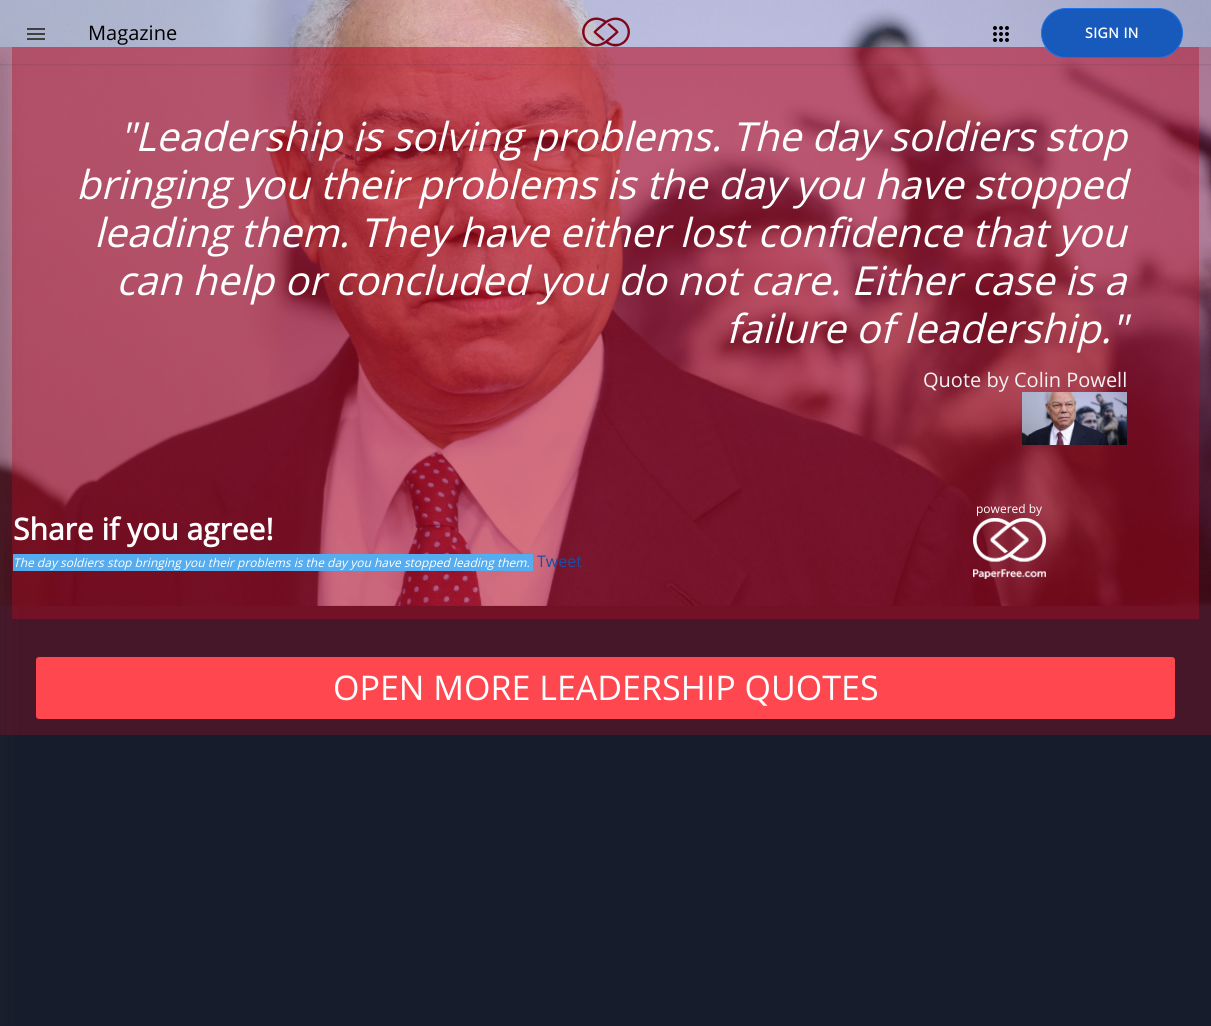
import math
import cairo

surface = cairo.ImageSurface(cairo.FORMAT_RGB24, 1211, 1026)
ctx = cairo.Context(surface)
options = cairo.FontOptions()
options.set_hint_metrics(cairo.HINT_METRICS_OFF)
options.set_hint_style(cairo.HINT_STYLE_NONE)
ctx.set_font_options(options)
ctx.set_miter_limit(4)


def spaced_text(x, y, s, letter, word):
    ctx.move_to(x, y)
    for ch in s:
        ctx.show_text(ch)
        ctx.rel_move_to(letter + word * (ch == ' '), 0)


def round_rect(x, y, w, h, r):
    ctx.new_sub_path()
    for i, (u, v) in enumerate([(x + w - r, y + h - r), (x + r, y + h - r), (x + r, y + r), (x + w - r, y + r)]):
        ctx.arc(u, v, r, i * math.pi / 2, (i + 1) * math.pi / 2)
    ctx.close_path()


def shadow(x, y, w, h, r, blur, alpha):
    ctx.push_group_with_content(cairo.CONTENT_ALPHA)
    ctx.set_operator(cairo.OPERATOR_SOURCE)
    for i in range(15, -16, -2):
        e = blur * i / 6
        if min(w, h) + 2 * e > 0:
            ctx.set_source_rgba(0, 0, 0, alpha * math.erfc((i - 1) / 8.5) / 2)
            round_rect(x - e, y - e, w + 2 * e, h + 2 * e, max(0, min(r + e + blur * .6, min(w, h) / 2 + e)))
            ctx.fill()
    ctx.mask(ctx.pop_group())


def picture(path, x, y, w, h):
    ctx.save()
    ctx.set_source_surface(cairo.ImageSurface.create_from_png(path), x, y)
    ctx.rectangle(x, y, w, h)
    ctx.fill()
    ctx.restore()


ctx.set_source_rgb(0.086, 0.11, 0.173)
ctx.paint()
ctx.set_source_rgb(0.275, 0.086, 0.161)
ctx.rectangle(0, 605, 1211, 130)
ctx.fill()
ctx.set_source_rgb(0.451, 0.067, 0.149)
ctx.rectangle(12, 605, 1187, 14)
ctx.fill()
picture("img1.png", 0, 0, 1211, 606)
ctx.set_source_rgb(0.333, 0.675, 0.933)
ctx.rectangle(13, 554, 520, 17)
ctx.fill()
ctx.set_source_rgb(1, 0.278, 0.314)
round_rect(36, 657, 1139, 62, 3)
ctx.fill()
ctx.set_source_rgb(0.196, 0.196, 0.196)
shadow(-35, 60, 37, 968, 0, 11.5, 0.24)
ctx.save()
ctx.rectangle(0, 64, 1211, 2)
ctx.clip()
shadow(0, 0, 1211, 64, 0, 1.5, 0.28)
ctx.restore()
picture("img2.png", 27, 28, 18, 12)
ctx.select_font_face("Open Sans")
ctx.set_font_size(20)
ctx.set_source_rgb(0, 0, 0)
ctx.move_to(88, 40)
ctx.show_text("Magazine")
picture("img3.png", 582, 17, 48, 30)
picture("img4.png", 993, 26, 16, 16)
ctx.set_source_rgb(0.094, 0.353, 0.737)
round_rect(1041.5, 8.5, 141, 49, 24.5)
ctx.fill_preserve()
ctx.set_source_rgb(0.102, 0.451, 0.91)
ctx.set_line_width(1)
ctx.stroke()
ctx.select_font_face("Open Sans", cairo.FONT_SLANT_NORMAL, cairo.FONT_WEIGHT_BOLD)
ctx.set_font_size(14)
ctx.set_source_rgb(1, 1, 1)
spaced_text(1085, 38, "SIGN IN", 0.5, 0)
ctx.select_font_face("Open Sans", cairo.FONT_SLANT_ITALIC)
ctx.set_font_size(40)
ctx.move_to(119, 151)
ctx.show_text("\"Leadership is solving problems. The day soldiers stop")
ctx.move_to(76, 199)
ctx.show_text("bringing you their problems is the day you have stopped")
ctx.move_to(94, 247)
ctx.show_text("leading them. They have either lost confidence that you")
ctx.move_to(116, 295)
ctx.show_text("can help or concluded you do not care. Either case is a")
ctx.move_to(726, 343)
ctx.show_text("failure of leadership.\"")
ctx.select_font_face("Open Sans")
ctx.set_font_size(20)
ctx.set_source_rgb(0.949, 0.949, 0.949)
ctx.move_to(923, 387)
ctx.show_text("Quote by Colin Powell")
picture("img5.png", 1022, 392, 105, 53)
ctx.set_font_size(12)
ctx.set_source_rgb(1, 1, 1)
ctx.move_to(976, 513)
ctx.show_text("powered by")
picture("img6.png", 973, 518, 73, 61)
ctx.select_font_face("Open Sans", cairo.FONT_SLANT_NORMAL, cairo.FONT_WEIGHT_BOLD)
ctx.set_font_size(30)
ctx.move_to(13, 540)
ctx.show_text("Share if you agree!")
ctx.select_font_face("Open Sans", cairo.FONT_SLANT_ITALIC)
ctx.set_font_size(12)
ctx.move_to(13, 567)
ctx.show_text("The day soldiers stop bringing you their problems is the day you have stopped leading them.")
ctx.select_font_face("Open Sans")
ctx.set_font_size(16)
ctx.set_source_rgb(0.09, 0.306, 0.651)
ctx.move_to(537, 567)
ctx.show_text("Tweet")
ctx.set_font_size(34)
ctx.set_source_rgb(1, 1, 1)
ctx.move_to(333, 700)
ctx.show_text("OPEN MORE LEADERSHIP QUOTES")
surface.write_to_png("page.png")
